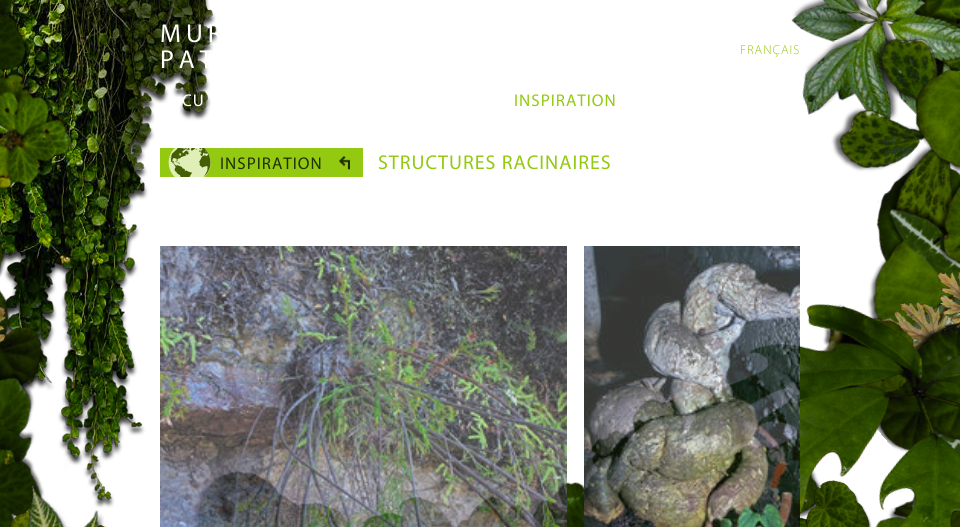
import math
import cairo

surface = cairo.ImageSurface(cairo.FORMAT_RGB24, 960, 527)
ctx = cairo.Context(surface)
options = cairo.FontOptions()
options.set_hint_metrics(cairo.HINT_METRICS_OFF)
options.set_hint_style(cairo.HINT_STYLE_NONE)
ctx.set_font_options(options)
ctx.set_miter_limit(4)


def spaced_text(x, y, s, letter, word):
    ctx.move_to(x, y)
    for ch in s:
        ctx.show_text(ch)
        ctx.rel_move_to(letter + word * (ch == ' '), 0)


def picture(path, x, y, w, h):
    ctx.save()
    ctx.set_source_surface(cairo.ImageSurface.create_from_png(path), x, y)
    ctx.rectangle(x, y, w, h)
    ctx.fill()
    ctx.restore()


ctx.set_source_rgb(1, 1, 1)
ctx.paint()
picture("img1.png", 0, 0, 219, 508)
picture("img2.png", 0, 0, 75, 190)
picture("img3.png", 0, 239, 45, 152)
picture("img4.png", 0, 306, 6, 37)
picture("img5.png", 0, 373, 45, 154)
picture("img6.png", 10, 505, 97, 22)
picture("img8.png", 886, 0, 74, 72)
picture("img7.png", 791, 0, 169, 121)
picture("img11.png", 876, 166, 84, 272)
picture("img9.png", 831, 36, 129, 207)
picture("img10.png", 915, 69, 45, 104)
picture("img13.png", 868, 226, 92, 301)
picture("img12.png", 889, 204, 71, 308)
picture("img15.png", 880, 271, 80, 82)
picture("img14.png", 823, 180, 137, 272)
picture("img18.png", 505, 398, 317, 129)
picture("img24.png", 653, 505, 254, 22)
picture("img21.png", 771, 480, 101, 47)
picture("img16.png", 676, 303, 284, 224)
picture("img22.png", 191, 522, 9, 5)
picture("img23.png", 296, 502, 177, 25)
picture("img17.png", 192, 470, 110, 57)
picture("img19.png", 27, 484, 77, 43)
picture("img20.png", 399, 496, 118, 31)
ctx.select_font_face("Myriad")
ctx.set_font_size(26)
ctx.set_source_rgb(1, 1, 1)
spaced_text(160, 42, "MUR", 5, 0)
spaced_text(160, 68, "PAT", 5, 0)
ctx.select_font_face("Myriad Light")
ctx.set_font_size(13)
ctx.set_source_rgb(0.58, 0.788, 0.067)
spaced_text(740, 54, "FRANÇAIS", 1, 0)
ctx.select_font_face("Myriad")
ctx.set_font_size(17)
ctx.set_source_rgb(1, 1, 1)
spaced_text(182, 106, "CU", 1, 0)
ctx.set_source_rgb(0.58, 0.788, 0.067)
spaced_text(514, 106, "INSPIRATION", 1, 0)
ctx.rectangle(160, 148, 203, 29)
ctx.fill()
picture("img25.png", 168, 148, 43, 29)
picture("img26.png", 339, 156, 11, 14)
ctx.set_source_rgb(0.129, 0.188, 0)
spaced_text(220, 169, "INSPIRATION", 1, 0)
ctx.set_font_size(20)
ctx.set_source_rgb(0.58, 0.788, 0.067)
spaced_text(378, 169, "STRUCTURES RACINAIRES", 1, 0)
picture("img27.png", 160, 246, 407, 281)
picture("img28.png", 584, 246, 216, 281)
surface.write_to_png("page.png")
